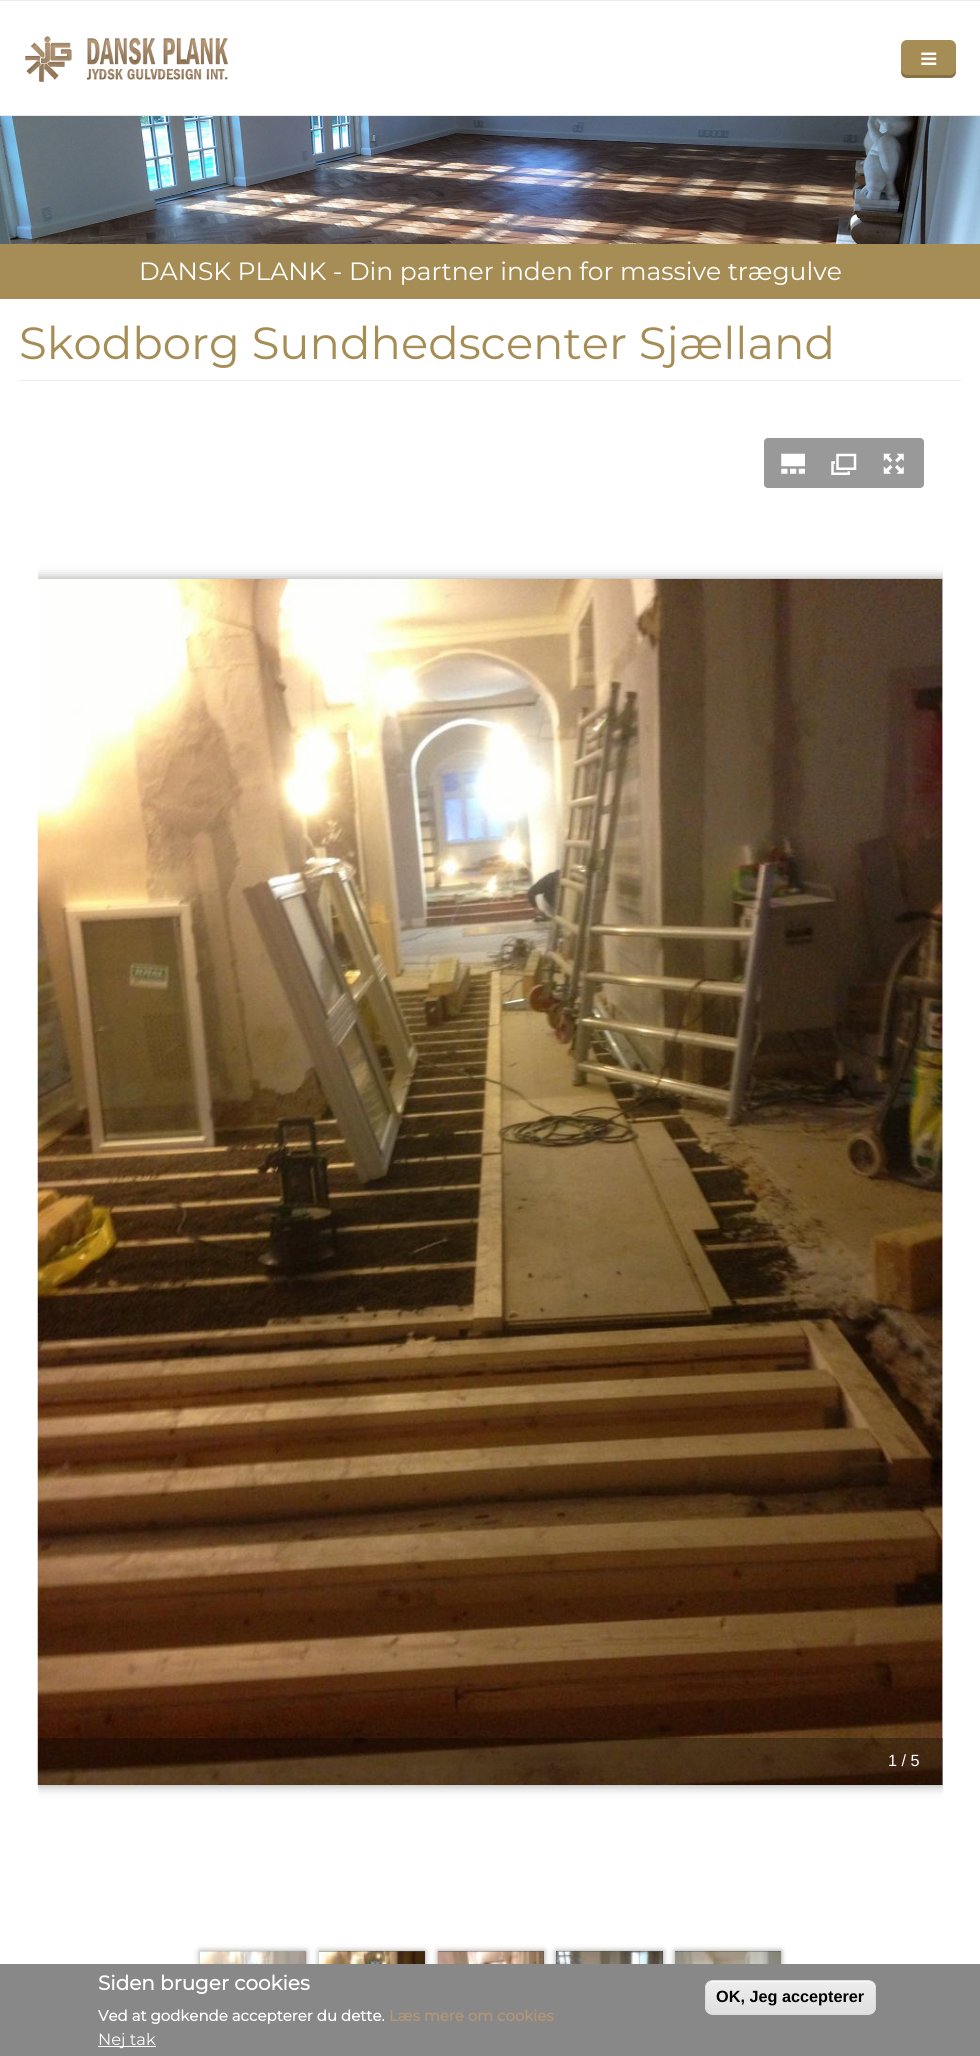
import math
import cairo

surface = cairo.ImageSurface(cairo.FORMAT_RGB24, 980, 2056)
ctx = cairo.Context(surface)
options = cairo.FontOptions()
options.set_hint_metrics(cairo.HINT_METRICS_OFF)
options.set_hint_style(cairo.HINT_STYLE_NONE)
ctx.set_font_options(options)
ctx.set_miter_limit(4)


def round_rect(x, y, w, h, r):
    ctx.new_sub_path()
    for i, (u, v) in enumerate([(x + w - r, y + h - r), (x + r, y + h - r), (x + r, y + r), (x + w - r, y + r)]):
        ctx.arc(u, v, r, i * math.pi / 2, (i + 1) * math.pi / 2)
    ctx.close_path()


def shadow(x, y, w, h, r, blur, alpha):
    ctx.push_group_with_content(cairo.CONTENT_ALPHA)
    ctx.set_operator(cairo.OPERATOR_SOURCE)
    for i in range(15, -16, -2):
        e = blur * i / 6
        if min(w, h) + 2 * e > 0:
            ctx.set_source_rgba(0, 0, 0, alpha * math.erfc((i - 1) / 8.5) / 2)
            round_rect(x - e, y - e, w + 2 * e, h + 2 * e, max(0, min(r + e + blur * .6, min(w, h) / 2 + e)))
            ctx.fill()
    ctx.mask(ctx.pop_group())


def picture(path, x, y, w, h):
    ctx.save()
    ctx.set_source_surface(cairo.ImageSurface.create_from_png(path), x, y)
    ctx.rectangle(x, y, w, h)
    ctx.fill()
    ctx.restore()


ctx.set_source_rgb(1, 1, 1)
ctx.paint()
picture("img1.png", 979, 116, 1, 128)
ctx.set_source_rgb(0.918, 0.918, 0.918)
ctx.rectangle(0, 0, 980, 1)
ctx.fill()
ctx.rectangle(0, 115, 980, 1)
ctx.fill()
picture("img2.png", 25, 36, 203, 46)
ctx.set_source_rgb(0.651, 0.553, 0.333)
round_rect(901, 40, 55, 38, 6)
ctx.fill()
ctx.set_source_rgba(0, 0, 0, 0.2)
ctx.new_path()
ctx.move_to(901, 69)
ctx.curve_to(901, 79, 905, 78, 914, 78)
ctx.line_to(943, 78)
ctx.curve_to(952, 78, 956, 79, 956, 69)
ctx.curve_to(956, 72, 953, 75, 950, 75)
ctx.line_to(908, 75)
ctx.curve_to(904, 75, 901, 72, 901, 69)
ctx.close_path()
ctx.fill()
picture("img3.png", 921, 52, 16, 13)
picture("img4.png", 0, 116, 980, 128)
ctx.set_source_rgb(0.651, 0.553, 0.333)
ctx.rectangle(0, 244, 980, 55)
ctx.fill()
ctx.select_font_face("Montserrat Thin")
ctx.set_font_size(25)
ctx.set_source_rgb(1, 1, 1)
ctx.move_to(139, 280)
ctx.show_text("DANSK PLANK - Din partner inden for massive trægulve")
ctx.set_source_rgb(0.933, 0.933, 0.933)
ctx.rectangle(19, 380, 942, 1)
ctx.fill()
ctx.set_font_size(45)
ctx.set_source_rgb(0.651, 0.553, 0.333)
ctx.move_to(19, 359)
ctx.show_text("Skodborg Sundhedscenter Sjælland")
ctx.set_source_rgb(0.6, 0.6, 0.6)
round_rect(764, 438, 160, 50, 4)
ctx.fill()
picture("img5.png", 781, 453, 24, 21)
picture("img6.png", 831, 453, 26, 22)
picture("img7.png", 883, 453, 21, 21)
ctx.save()
ctx.rectangle(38, 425, 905, 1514)
ctx.clip()
ctx.set_source_rgb(0, 0, 0)
shadow(38, 579, 905, 1206, 0, 6, 0.4)
ctx.restore()
picture("img8.png", 37, 578, 906, 1207)
ctx.set_source_rgba(0, 0, 0, 0.3)
ctx.rectangle(38, 1738, 905, 47)
ctx.fill()
ctx.select_font_face("Liberation Sans")
ctx.set_font_size(16.25)
ctx.set_source_rgb(1, 1, 1)
ctx.move_to(888, 1766)
ctx.show_text("1 / 5")
ctx.set_source_rgb(0, 0, 0)
shadow(200, 1951, 106, 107, 0, 3, 0.4)
ctx.set_source_rgba(0, 0, 0, 0.5)
ctx.rectangle(200, 1951, 106, 1)
ctx.fill()
ctx.save()
ctx.rectangle(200, 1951, 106, 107)
ctx.clip()
ctx.set_source_rgb(0, 0, 0)
shadow(200, 1951, 106, 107, 0, 3, 0.4)
ctx.restore()
picture("img9.png", 200, 1951, 107, 13)
ctx.rectangle(206.5, 1957.5, 93, 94)
ctx.set_source_rgba(1, 1, 1, 0.5)
ctx.set_line_width(13)
ctx.stroke()
ctx.set_source_rgb(0, 0, 0)
shadow(319, 1951, 106, 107, 0, 3, 0.4)
ctx.set_source_rgba(0, 0, 0, 0.5)
ctx.rectangle(319, 1951, 106, 1)
ctx.fill()
ctx.save()
ctx.rectangle(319, 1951, 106, 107)
ctx.clip()
ctx.set_source_rgb(0, 0, 0)
shadow(319, 1951, 106, 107, 0, 3, 0.4)
ctx.restore()
picture("img10.png", 318, 1951, 107, 13)
ctx.set_source_rgb(0, 0, 0)
shadow(438, 1951, 106, 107, 0, 3, 0.4)
ctx.set_source_rgba(0, 0, 0, 0.5)
ctx.rectangle(438, 1951, 106, 13)
ctx.fill()
ctx.save()
ctx.rectangle(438, 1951, 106, 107)
ctx.clip()
ctx.set_source_rgb(0, 0, 0)
shadow(438, 1951, 106, 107, 0, 3, 0.4)
ctx.restore()
picture("img11.png", 437, 1951, 107, 13)
ctx.set_source_rgb(0, 0, 0)
shadow(556, 1951, 107, 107, 0, 3, 0.4)
ctx.set_source_rgba(0, 0, 0, 0.5)
ctx.rectangle(556, 1951, 107, 13)
ctx.fill()
ctx.save()
ctx.rectangle(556, 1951, 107, 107)
ctx.clip()
ctx.set_source_rgb(0, 0, 0)
shadow(556, 1951, 107, 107, 0, 3, 0.4)
ctx.restore()
picture("img12.png", 556, 1951, 107, 13)
ctx.set_source_rgb(0, 0, 0)
shadow(675, 1951, 106, 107, 0, 3, 0.4)
ctx.set_source_rgba(0, 0, 0, 0.5)
ctx.rectangle(675, 1951, 106, 1)
ctx.fill()
ctx.save()
ctx.rectangle(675, 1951, 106, 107)
ctx.clip()
ctx.set_source_rgb(0, 0, 0)
shadow(675, 1951, 106, 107, 0, 3, 0.4)
ctx.restore()
picture("img13.png", 675, 1951, 107, 13)
ctx.set_source_rgb(0.533, 0.533, 0.533)
ctx.rectangle(0, 1964, 980, 92)
ctx.fill()
ctx.select_font_face("Montserrat", cairo.FONT_SLANT_NORMAL, cairo.FONT_WEIGHT_BOLD)
ctx.set_font_size(20)
ctx.set_source_rgb(1, 1, 1)
ctx.move_to(98, 1990)
ctx.show_text("Siden bruger cookies")
ctx.set_font_size(15)
ctx.move_to(98, 2021)
ctx.show_text("Ved at godkende accepterer du dette.")
ctx.set_source_rgb(0.706, 0.588, 0.459)
ctx.move_to(389, 2021)
ctx.show_text("Læs mere om cookies")
ctx.set_source_rgb(1, 1, 1)
ctx.rectangle(98, 2046, 58, 1)
ctx.fill()
ctx.select_font_face("Montserrat Thin")
ctx.set_font_size(16.25)
ctx.move_to(98, 2045)
ctx.show_text("Nej tak")
ctx.save()
round_rect(705, 1980, 171, 35, 8)
ctx.clip()
gradient = cairo.LinearGradient(791, 1981, 791, 2014)
gradient.add_color_stop_rgba(0.05, 0.929, 0.929, 0.929, 1)
gradient.add_color_stop_rgba(1, 0.875, 0.875, 0.875, 1)
ctx.set_source(gradient)
ctx.rectangle(705, 1981, 171, 33)
ctx.fill()
ctx.restore()
ctx.new_path()
ctx.move_to(712, 1982)
ctx.line_to(869, 1982)
ctx.curve_to(872, 1982, 875, 1985, 875, 1989)
ctx.line_to(875, 1987)
ctx.curve_to(875, 1984, 872, 1981, 869, 1981)
ctx.line_to(712, 1981)
ctx.curve_to(709, 1981, 706, 1984, 706, 1987)
ctx.line_to(706, 1989)
ctx.curve_to(706, 1985, 709, 1982, 712, 1982)
ctx.close_path()
ctx.fill()
round_rect(705.5, 1980.5, 170, 34, 7.5)
ctx.set_source_rgb(0.863, 0.863, 0.863)
ctx.set_line_width(1)
ctx.stroke()
ctx.select_font_face("Liberation Sans", cairo.FONT_SLANT_NORMAL, cairo.FONT_WEIGHT_BOLD)
ctx.set_source_rgb(0, 0, 0)
ctx.move_to(716, 2002)
ctx.show_text("OK, Jeg accepterer")
surface.write_to_png("page.png")
